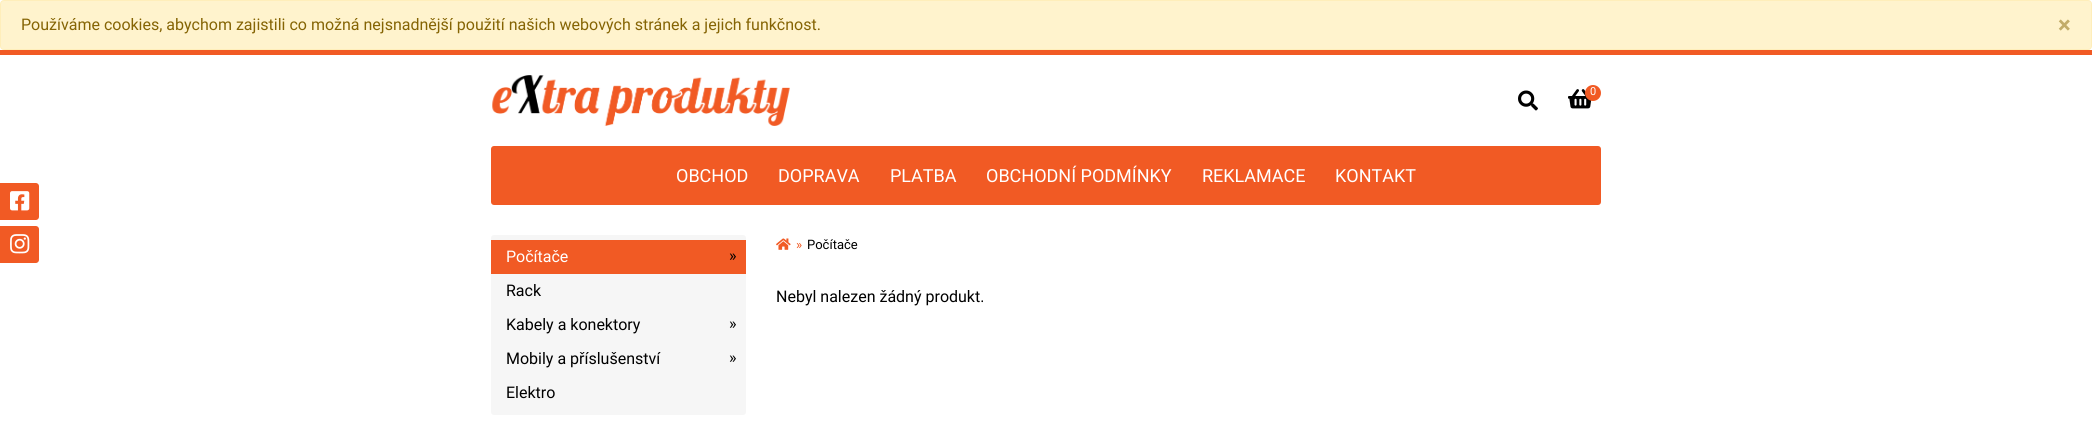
import math
import cairo

surface = cairo.ImageSurface(cairo.FORMAT_RGB24, 2092, 445)
ctx = cairo.Context(surface)
options = cairo.FontOptions()
options.set_hint_metrics(cairo.HINT_METRICS_OFF)
options.set_hint_style(cairo.HINT_STYLE_NONE)
ctx.set_font_options(options)
ctx.set_miter_limit(4)


def round_rect(x, y, w, h, r):
    ctx.new_sub_path()
    for i, (u, v) in enumerate([(x + w - r, y + h - r), (x + r, y + h - r), (x + r, y + r), (x + w - r, y + r)]):
        ctx.arc(u, v, r, i * math.pi / 2, (i + 1) * math.pi / 2)
    ctx.close_path()


def picture(path, x, y, w, h):
    ctx.save()
    ctx.set_source_surface(cairo.ImageSurface.create_from_png(path), x, y)
    ctx.rectangle(x, y, w, h)
    ctx.fill()
    ctx.restore()


ctx.set_source_rgb(1, 1, 1)
ctx.paint()
ctx.set_source_rgb(1, 0.953, 0.804)
round_rect(0.5, 0.5, 2091, 49, 3.5)
ctx.fill_preserve()
ctx.set_source_rgb(1, 0.933, 0.729)
ctx.set_line_width(1)
ctx.stroke()
ctx.select_font_face("Roboto")
ctx.set_font_size(16)
ctx.set_source_rgb(0.522, 0.392, 0.016)
ctx.move_to(21, 30)
ctx.show_text("Používáme cookies, abychom zajistili co možná nejsnadnější použití našich webových stránek a jejich funkčnost.")
ctx.select_font_face("Roboto", cairo.FONT_SLANT_NORMAL, cairo.FONT_WEIGHT_BOLD)
ctx.set_font_size(24)
ctx.set_source_rgb(0.761, 0.675, 0.412)
ctx.move_to(2058, 33)
ctx.show_text("×")
ctx.set_source_rgb(0.945, 0.353, 0.141)
ctx.rectangle(0, 50, 2092, 5)
ctx.fill()
picture("img1.png", 492, 75, 298, 51)
picture("img2.png", 1518, 90, 20, 21)
picture("img3.png", 1568, 89, 24, 20)
ctx.arc(1593, 93, 8, 0, 2 * math.pi)
ctx.fill()
ctx.select_font_face("Roboto")
ctx.set_font_size(11)
ctx.set_source_rgb(1, 1, 1)
ctx.move_to(1590, 95)
ctx.show_text("0")
ctx.set_source_rgb(0.945, 0.353, 0.141)
round_rect(491, 146, 1110, 59, 3)
ctx.fill()
ctx.set_font_size(18)
ctx.set_source_rgb(1, 1, 1)
ctx.move_to(676, 182)
ctx.show_text("OBCHOD")
ctx.move_to(778, 182)
ctx.show_text("DOPRAVA")
ctx.move_to(890, 182)
ctx.show_text("PLATBA")
ctx.move_to(986, 182)
ctx.show_text("OBCHODNÍ PODMÍNKY")
ctx.move_to(1202, 182)
ctx.show_text("REKLAMACE")
ctx.move_to(1335, 182)
ctx.show_text("KONTAKT")
ctx.set_source_rgb(0.945, 0.353, 0.141)
ctx.new_path()
ctx.move_to(0, 183)
ctx.line_to(36, 183)
ctx.curve_to(37.5, 183, 39, 184.5, 39, 186)
ctx.line_to(39, 217)
ctx.curve_to(39, 218.5, 37.5, 220, 36, 220)
ctx.line_to(0, 220)
ctx.close_path()
ctx.fill()
picture("img4.png", 10, 191, 20, 20)
ctx.new_path()
ctx.move_to(0, 226)
ctx.line_to(36, 226)
ctx.curve_to(37.5, 226, 39, 227.5, 39, 229)
ctx.line_to(39, 260)
ctx.curve_to(39, 261.5, 37.5, 263, 36, 263)
ctx.line_to(0, 263)
ctx.close_path()
ctx.fill()
picture("img5.png", 10, 234, 20, 20)
ctx.set_source_rgb(0.961, 0.961, 0.961)
round_rect(491, 235, 255, 180, 3)
ctx.fill()
ctx.set_source_rgb(0.945, 0.353, 0.141)
ctx.rectangle(491, 240, 255, 34)
ctx.fill()
ctx.set_font_size(16)
ctx.set_source_rgb(1, 1, 1)
ctx.move_to(506, 262)
ctx.show_text("Počítače")
ctx.set_source_rgb(0, 0, 0)
ctx.move_to(729, 261)
ctx.show_text("»")
ctx.move_to(506, 296)
ctx.show_text("Rack")
ctx.move_to(506, 330)
ctx.show_text("Kabely a konektory")
ctx.move_to(729, 329)
ctx.show_text("»")
ctx.move_to(506, 364)
ctx.show_text("Mobily a příslušenství")
ctx.move_to(729, 363)
ctx.show_text("»")
ctx.move_to(506, 398)
ctx.show_text("Elektro")
picture("img6.png", 776, 238, 15, 12)
ctx.set_font_size(13)
ctx.set_source_rgb(0.945, 0.353, 0.141)
ctx.move_to(796, 249)
ctx.show_text("»")
ctx.set_source_rgb(0, 0, 0)
ctx.move_to(807, 249)
ctx.show_text("Počítače")
ctx.set_font_size(16)
ctx.move_to(776, 302)
ctx.show_text("Nebyl nalezen žádný produkt.")
surface.write_to_png("page.png")
